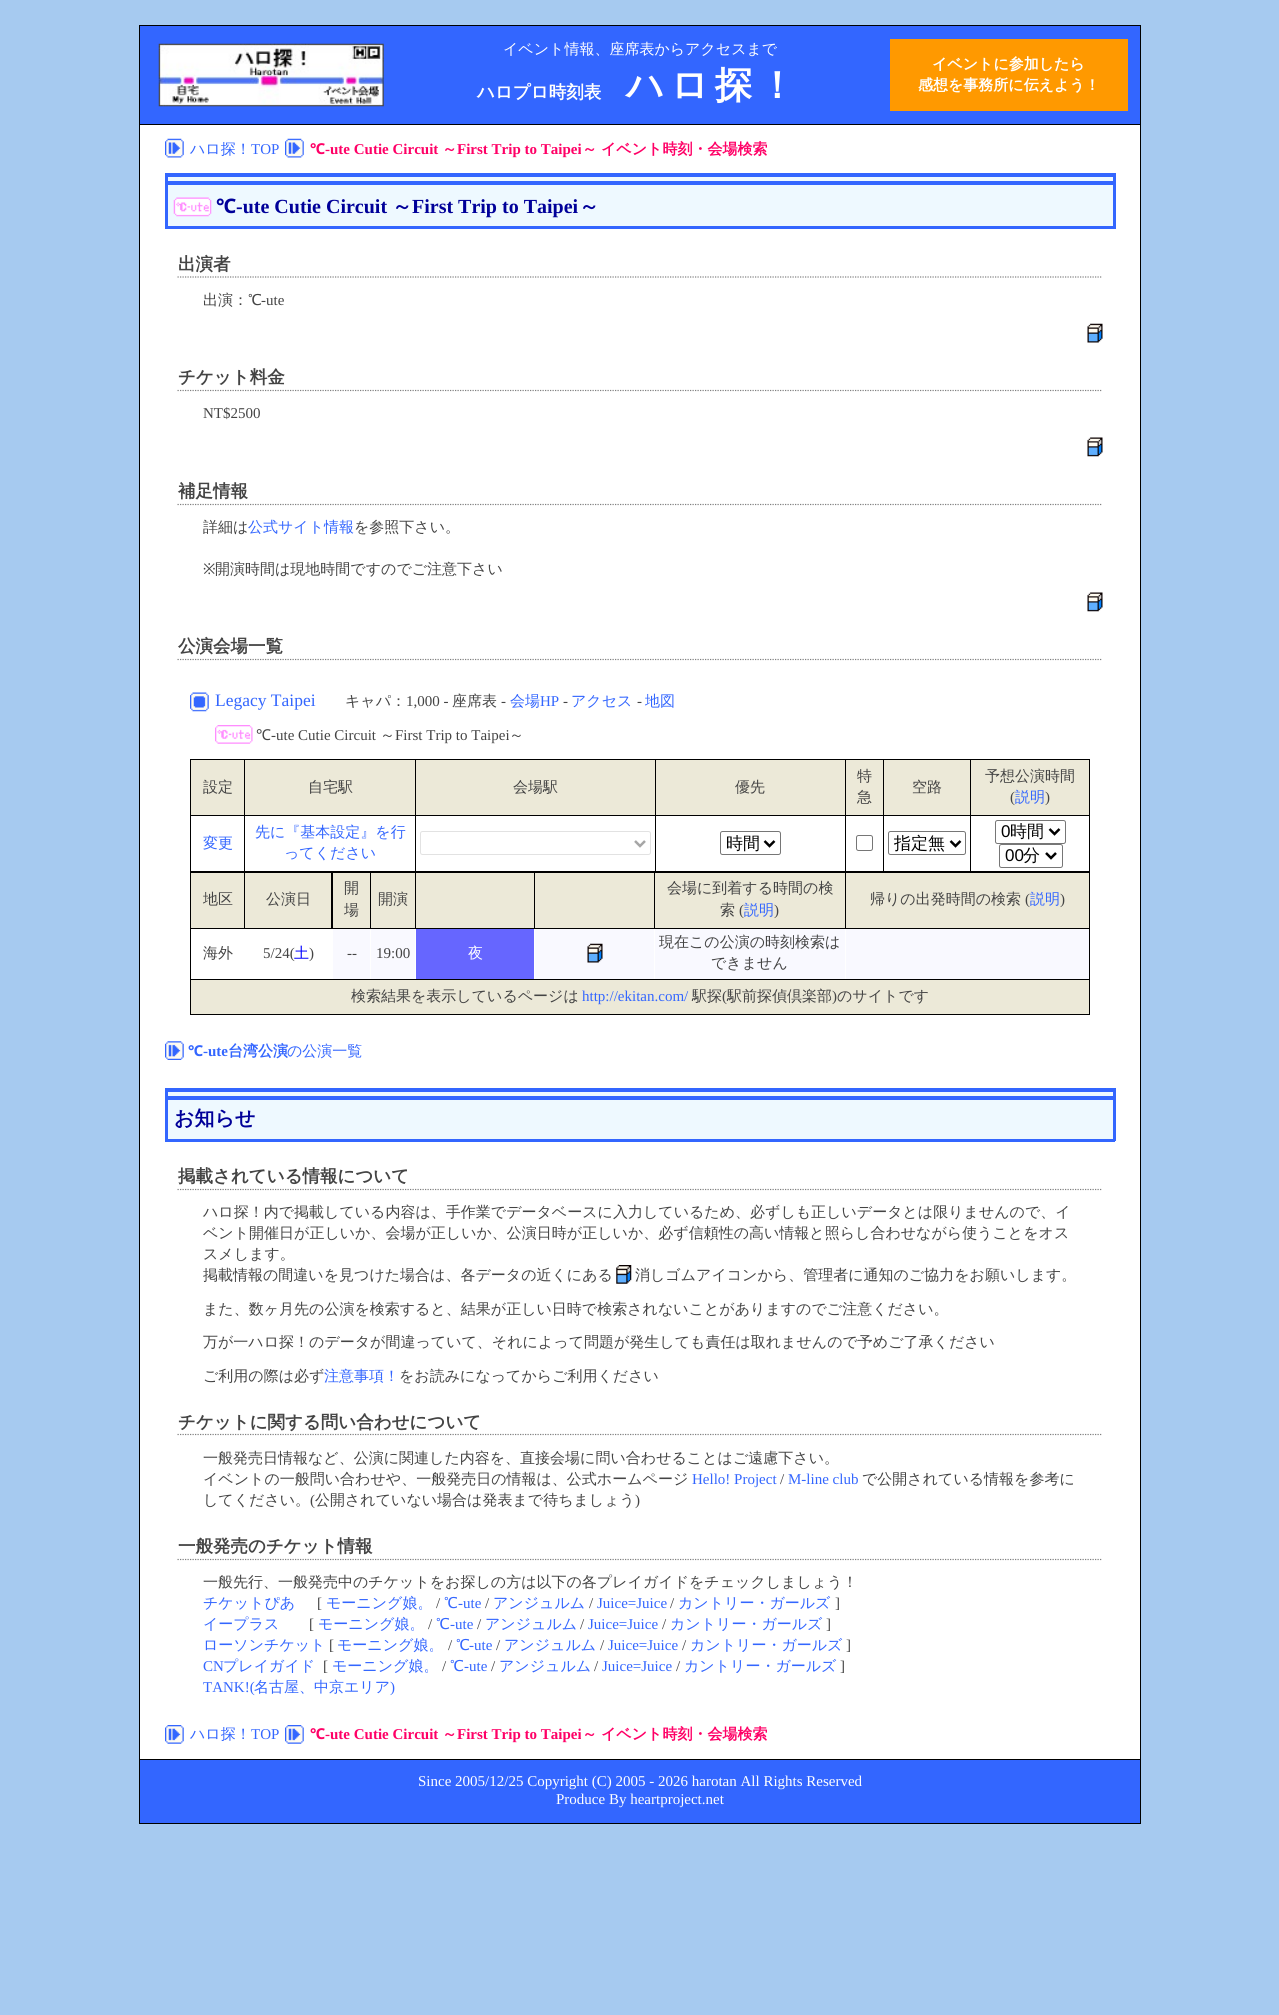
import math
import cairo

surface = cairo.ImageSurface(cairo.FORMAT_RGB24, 1279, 2015)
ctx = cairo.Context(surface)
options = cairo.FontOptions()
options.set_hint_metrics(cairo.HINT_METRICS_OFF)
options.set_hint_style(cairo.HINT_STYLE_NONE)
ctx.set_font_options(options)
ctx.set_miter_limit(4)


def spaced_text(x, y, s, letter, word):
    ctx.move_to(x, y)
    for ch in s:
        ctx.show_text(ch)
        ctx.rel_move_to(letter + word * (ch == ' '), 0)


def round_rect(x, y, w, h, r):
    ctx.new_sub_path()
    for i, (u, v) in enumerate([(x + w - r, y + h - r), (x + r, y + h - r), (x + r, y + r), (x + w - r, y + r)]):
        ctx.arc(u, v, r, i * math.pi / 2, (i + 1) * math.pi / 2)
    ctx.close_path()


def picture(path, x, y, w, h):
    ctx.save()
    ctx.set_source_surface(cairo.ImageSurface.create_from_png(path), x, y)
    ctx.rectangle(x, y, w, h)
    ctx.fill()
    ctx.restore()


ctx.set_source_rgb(0.651, 0.792, 0.941)
ctx.paint()
ctx.set_source_rgb(1, 1, 1)
ctx.rectangle(140, 125, 1000, 1634)
ctx.fill()
ctx.rectangle(139.5, 25.5, 1001, 1798)
ctx.set_source_rgb(0, 0, 0)
ctx.set_line_width(1)
ctx.stroke()
ctx.set_source_rgb(0.2, 0.4, 1)
ctx.rectangle(140, 26, 1000, 98)
ctx.fill()
ctx.set_source_rgb(0, 0, 0)
ctx.rectangle(140, 124, 1000, 1)
ctx.fill()
picture("img1.png", 158, 43, 226, 64)
ctx.select_font_face("WenQuanYi Zen Hei Medium")
ctx.set_font_size(15)
ctx.set_source_rgb(1, 1, 1)
ctx.move_to(503, 54)
ctx.show_text("イベント情報、座席表からアクセスまで")
ctx.select_font_face("WenQuanYi Zen Hei", cairo.FONT_SLANT_NORMAL, cairo.FONT_WEIGHT_BOLD)
ctx.set_font_size(17.5)
ctx.move_to(477, 98)
ctx.show_text("ハロプロ時刻表")
ctx.set_font_size(37.5)
spaced_text(626, 98, "ハロ探！", 6, 0)
ctx.set_source_rgb(1, 0.6, 0)
ctx.rectangle(890, 39, 238, 72)
ctx.fill()
ctx.set_font_size(15)
ctx.set_source_rgb(1, 1, 1)
ctx.move_to(932, 69)
ctx.show_text("イベントに参加したら")
ctx.move_to(918, 90)
ctx.show_text("感想を事務所に伝えよう！")
picture("img2.png", 165, 138, 19, 20)
ctx.select_font_face("WenQuanYi Zen Hei Medium")
ctx.set_source_rgb(0.2, 0.4, 1)
ctx.move_to(190, 154)
ctx.show_text("ハロ探！")
ctx.select_font_face("Liberation Serif")
ctx.move_to(251, 154)
ctx.show_text("TOP")
picture("img3.png", 285, 138, 19, 20)
ctx.select_font_face("Noto Sans", cairo.FONT_SLANT_NORMAL, cairo.FONT_WEIGHT_BOLD)
ctx.set_source_rgb(1, 0, 0.4)
ctx.move_to(310, 154)
ctx.show_text("℃")
ctx.select_font_face("Liberation Serif", cairo.FONT_SLANT_NORMAL, cairo.FONT_WEIGHT_BOLD)
ctx.move_to(325, 154)
ctx.show_text("-ute Cutie Circuit")
ctx.select_font_face("WenQuanYi Zen Hei", cairo.FONT_SLANT_NORMAL, cairo.FONT_WEIGHT_BOLD)
ctx.move_to(442, 154)
ctx.show_text("～")
ctx.select_font_face("Liberation Serif", cairo.FONT_SLANT_NORMAL, cairo.FONT_WEIGHT_BOLD)
ctx.move_to(457, 154)
ctx.show_text("First Trip to Taipei")
ctx.select_font_face("WenQuanYi Zen Hei", cairo.FONT_SLANT_NORMAL, cairo.FONT_WEIGHT_BOLD)
ctx.move_to(582, 154)
ctx.show_text("～")
ctx.move_to(601, 154)
ctx.show_text("イベント時刻・会場検索")
ctx.set_source_rgb(0.933, 0.973, 1)
ctx.rectangle(168, 177, 945, 49)
ctx.fill()
ctx.set_source_rgb(0.2, 0.4, 1)
ctx.rectangle(165, 173, 950, 4)
ctx.fill()
ctx.rectangle(165, 181, 950, 4)
ctx.fill()
ctx.rectangle(1113, 173, 3, 56)
ctx.fill()
ctx.rectangle(165, 226, 950, 3)
ctx.fill()
ctx.rectangle(165, 173, 3, 56)
ctx.fill()
picture("img4.png", 173, 197, 39, 20)
ctx.select_font_face("Noto Sans", cairo.FONT_SLANT_NORMAL, cairo.FONT_WEIGHT_BOLD)
ctx.set_font_size(20)
ctx.set_source_rgb(0, 0, 0.6)
ctx.move_to(216, 213)
ctx.show_text("℃")
ctx.select_font_face("Liberation Serif", cairo.FONT_SLANT_NORMAL, cairo.FONT_WEIGHT_BOLD)
ctx.move_to(236, 213)
ctx.show_text("-ute Cutie Circuit")
ctx.select_font_face("WenQuanYi Zen Hei", cairo.FONT_SLANT_NORMAL, cairo.FONT_WEIGHT_BOLD)
ctx.move_to(392, 213)
ctx.show_text("～")
ctx.select_font_face("Liberation Serif", cairo.FONT_SLANT_NORMAL, cairo.FONT_WEIGHT_BOLD)
ctx.move_to(412, 213)
ctx.show_text("First Trip to Taipei")
ctx.select_font_face("WenQuanYi Zen Hei", cairo.FONT_SLANT_NORMAL, cairo.FONT_WEIGHT_BOLD)
ctx.move_to(579, 213)
ctx.show_text("～")
ctx.new_path()
ctx.move_to(177.5, 277)
ctx.line_to(1102.5, 277)
ctx.set_source_rgb(0.502, 0.502, 0.502)
ctx.set_line_width(1.2)
ctx.set_dash([1.25, 1.25])
ctx.stroke()
ctx.set_font_size(17.5)
ctx.set_source_rgb(0.267, 0.267, 0.267)
ctx.move_to(178, 270)
ctx.show_text("出演者")
ctx.select_font_face("WenQuanYi Zen Hei Medium")
ctx.set_font_size(15)
ctx.move_to(203, 305)
ctx.show_text("出演：℃")
ctx.select_font_face("Liberation Serif")
ctx.move_to(261, 305)
ctx.show_text("-ute")
picture("img5.png", 1087, 323, 16, 20)
ctx.new_path()
ctx.move_to(177.5, 390.5)
ctx.line_to(1102.5, 390.5)
ctx.set_source_rgb(0.502, 0.502, 0.502)
ctx.stroke()
ctx.select_font_face("WenQuanYi Zen Hei", cairo.FONT_SLANT_NORMAL, cairo.FONT_WEIGHT_BOLD)
ctx.set_font_size(17.5)
ctx.set_source_rgb(0.267, 0.267, 0.267)
ctx.move_to(178, 383)
ctx.show_text("チケット料金")
ctx.select_font_face("Liberation Serif")
ctx.set_font_size(15)
ctx.move_to(203, 418)
ctx.show_text("NT$2500")
picture("img6.png", 1087, 437, 16, 20)
ctx.new_path()
ctx.move_to(177.5, 504.5)
ctx.line_to(1102.5, 504.5)
ctx.set_source_rgb(0.502, 0.502, 0.502)
ctx.stroke()
ctx.select_font_face("WenQuanYi Zen Hei", cairo.FONT_SLANT_NORMAL, cairo.FONT_WEIGHT_BOLD)
ctx.set_font_size(17.5)
ctx.set_source_rgb(0.267, 0.267, 0.267)
ctx.move_to(178, 497)
ctx.show_text("補足情報")
ctx.select_font_face("WenQuanYi Zen Hei Medium")
ctx.set_font_size(15)
ctx.move_to(203, 532)
ctx.show_text("詳細は")
ctx.set_source_rgb(0.2, 0.4, 1)
ctx.move_to(248, 532)
ctx.show_text("公式サイト情報")
ctx.set_source_rgb(0.267, 0.267, 0.267)
ctx.move_to(354, 532)
ctx.show_text("を参照下さい。")
ctx.select_font_face("Noto Sans")
ctx.move_to(203, 574)
ctx.show_text("※")
ctx.select_font_face("WenQuanYi Zen Hei Medium")
ctx.move_to(215, 574)
ctx.show_text("開演時間は現地時間ですのでご注意下さい")
picture("img6.png", 1087, 592, 16, 20)
ctx.new_path()
ctx.move_to(177.5, 659.5)
ctx.line_to(1102.5, 659.5)
ctx.set_source_rgb(0.502, 0.502, 0.502)
ctx.stroke()
ctx.select_font_face("WenQuanYi Zen Hei", cairo.FONT_SLANT_NORMAL, cairo.FONT_WEIGHT_BOLD)
ctx.set_font_size(17.5)
ctx.set_source_rgb(0.267, 0.267, 0.267)
ctx.move_to(178, 652)
ctx.show_text("公演会場一覧")
picture("img7.png", 190, 692, 19, 20)
ctx.select_font_face("Liberation Serif")
ctx.set_source_rgb(0.2, 0.4, 1)
ctx.move_to(215, 706)
ctx.show_text("Legacy Taipei")
ctx.select_font_face("WenQuanYi Zen Hei Medium")
ctx.set_font_size(15)
ctx.set_source_rgb(0.267, 0.267, 0.267)
ctx.move_to(345, 706)
ctx.show_text("キャパ：")
ctx.select_font_face("Liberation Serif")
ctx.move_to(406, 706)
ctx.show_text("1,000 -")
ctx.select_font_face("WenQuanYi Zen Hei Medium")
ctx.move_to(452, 706)
ctx.show_text("座席表")
ctx.select_font_face("Liberation Serif")
ctx.move_to(501, 706)
ctx.show_text("-")
ctx.select_font_face("WenQuanYi Zen Hei Medium")
ctx.set_source_rgb(0.2, 0.4, 1)
ctx.move_to(510, 706)
ctx.show_text("会場")
ctx.select_font_face("Liberation Serif")
ctx.move_to(540, 706)
ctx.show_text("HP")
ctx.set_source_rgb(0.267, 0.267, 0.267)
ctx.move_to(563, 706)
ctx.show_text("-")
ctx.select_font_face("WenQuanYi Zen Hei Medium")
ctx.set_source_rgb(0.2, 0.4, 1)
ctx.move_to(571, 706)
ctx.show_text("アクセス")
ctx.select_font_face("Liberation Serif")
ctx.set_source_rgb(0.267, 0.267, 0.267)
ctx.move_to(637, 706)
ctx.show_text("-")
ctx.select_font_face("WenQuanYi Zen Hei Medium")
ctx.set_source_rgb(0.2, 0.4, 1)
ctx.move_to(645, 706)
ctx.show_text("地図")
picture("img8.png", 215, 725, 38, 19)
ctx.select_font_face("Noto Sans")
ctx.set_source_rgb(0.267, 0.267, 0.267)
ctx.move_to(256, 740)
ctx.show_text("℃")
ctx.select_font_face("Liberation Serif")
ctx.move_to(271, 740)
ctx.show_text("-ute Cutie Circuit")
ctx.select_font_face("WenQuanYi Zen Hei Medium")
ctx.move_to(380, 740)
ctx.show_text("～")
ctx.select_font_face("Liberation Serif")
ctx.move_to(395, 740)
ctx.show_text("First Trip to Taipei")
ctx.select_font_face("WenQuanYi Zen Hei Medium")
ctx.move_to(509, 740)
ctx.show_text("～")
ctx.set_source_rgb(0, 0, 0)
ctx.rectangle(190, 759, 900, 256)
ctx.fill()
ctx.set_source_rgb(0.925, 0.914, 0.847)
ctx.rectangle(191, 760, 53, 55)
ctx.fill()
ctx.set_source_rgb(0.267, 0.267, 0.267)
ctx.move_to(203, 792)
ctx.show_text("設定")
ctx.set_source_rgb(0.925, 0.914, 0.847)
ctx.rectangle(245, 760, 170, 55)
ctx.fill()
ctx.set_source_rgb(0.267, 0.267, 0.267)
ctx.move_to(308, 792)
ctx.show_text("自宅駅")
ctx.set_source_rgb(0.925, 0.914, 0.847)
ctx.rectangle(416, 760, 239, 55)
ctx.fill()
ctx.set_source_rgb(0.267, 0.267, 0.267)
ctx.move_to(513, 792)
ctx.show_text("会場駅")
ctx.set_source_rgb(0.925, 0.914, 0.847)
ctx.rectangle(656, 760, 189, 55)
ctx.fill()
ctx.set_source_rgb(0.267, 0.267, 0.267)
ctx.move_to(735, 792)
ctx.show_text("優先")
ctx.set_source_rgb(0.925, 0.914, 0.847)
ctx.rectangle(846, 760, 37, 55)
ctx.fill()
ctx.set_source_rgb(0.267, 0.267, 0.267)
ctx.move_to(857, 781)
ctx.show_text("特")
ctx.move_to(857, 802)
ctx.show_text("急")
ctx.set_source_rgb(0.925, 0.914, 0.847)
ctx.rectangle(884, 760, 86, 55)
ctx.fill()
ctx.set_source_rgb(0.267, 0.267, 0.267)
ctx.move_to(912, 792)
ctx.show_text("空路")
ctx.set_source_rgb(0.925, 0.914, 0.847)
ctx.rectangle(971, 760, 118, 55)
ctx.fill()
ctx.set_source_rgb(0.267, 0.267, 0.267)
ctx.move_to(985, 781)
ctx.show_text("予想公演時間")
ctx.select_font_face("Liberation Serif")
ctx.move_to(1010, 802)
ctx.show_text("(")
ctx.select_font_face("WenQuanYi Zen Hei Medium")
ctx.set_source_rgb(0.2, 0.4, 1)
ctx.move_to(1015, 802)
ctx.show_text("説明")
ctx.select_font_face("Liberation Serif")
ctx.set_source_rgb(0.267, 0.267, 0.267)
ctx.move_to(1045, 802)
ctx.show_text(")")
ctx.set_source_rgb(1, 1, 1)
ctx.rectangle(191, 816, 53, 55)
ctx.fill()
ctx.select_font_face("WenQuanYi Zen Hei Medium")
ctx.set_source_rgb(0.2, 0.4, 1)
ctx.move_to(203, 848)
ctx.show_text("変更")
ctx.set_source_rgb(1, 1, 1)
ctx.rectangle(245, 816, 170, 55)
ctx.fill()
ctx.set_source_rgb(0.2, 0.4, 1)
ctx.move_to(255, 837)
ctx.show_text("先に『基本設定』を行")
ctx.move_to(284, 858)
ctx.show_text("ってください")
ctx.set_source_rgb(1, 1, 1)
ctx.rectangle(416, 816, 239, 55)
ctx.fill()
round_rect(420.5, 831.5, 230, 23, 2)
ctx.set_source_rgb(0.886, 0.886, 0.886)
ctx.set_line_width(1)
ctx.set_dash([])
ctx.stroke()
ctx.new_path()
ctx.move_to(635, 841)
ctx.line_to(640, 846)
ctx.line_to(645, 841)
ctx.set_source_rgb(0.651, 0.651, 0.651)
ctx.set_line_width(2.5)
ctx.stroke()
ctx.set_source_rgb(1, 1, 1)
ctx.rectangle(656, 816, 189, 55)
ctx.fill()
round_rect(720.5, 831.5, 60, 23, 2)
ctx.set_source_rgb(0.463, 0.463, 0.463)
ctx.set_line_width(1)
ctx.stroke()
ctx.new_path()
ctx.move_to(764.5, 841)
ctx.line_to(769.5, 846)
ctx.line_to(774.5, 841)
ctx.set_source_rgb(0, 0, 0)
ctx.set_line_width(2.5)
ctx.stroke()
ctx.set_font_size(17)
ctx.move_to(726, 849)
ctx.show_text("時間")
ctx.set_source_rgb(1, 1, 1)
ctx.rectangle(846, 816, 37, 55)
ctx.fill()
round_rect(856.5, 835.5, 16, 15, 2)
ctx.set_source_rgb(0.463, 0.463, 0.463)
ctx.set_line_width(1)
ctx.stroke()
ctx.set_source_rgb(1, 1, 1)
ctx.rectangle(884, 816, 86, 55)
ctx.fill()
round_rect(888.5, 831.5, 77, 23, 2)
ctx.set_source_rgb(0.463, 0.463, 0.463)
ctx.stroke()
ctx.new_path()
ctx.move_to(950.5, 841)
ctx.line_to(955.5, 846)
ctx.line_to(960.5, 841)
ctx.set_source_rgb(0, 0, 0)
ctx.set_line_width(2.5)
ctx.stroke()
ctx.move_to(894, 849)
ctx.show_text("指定無")
ctx.set_source_rgb(1, 1, 1)
ctx.rectangle(971, 816, 118, 55)
ctx.fill()
round_rect(995.5, 820.5, 70, 23, 2)
ctx.set_source_rgb(0.463, 0.463, 0.463)
ctx.set_line_width(1)
ctx.stroke()
ctx.new_path()
ctx.move_to(1049.5, 829)
ctx.line_to(1054.5, 834)
ctx.line_to(1059.5, 829)
ctx.set_source_rgb(0, 0, 0)
ctx.set_line_width(2.5)
ctx.stroke()
ctx.select_font_face("Liberation Sans")
ctx.move_to(1001, 837)
ctx.show_text("0")
ctx.select_font_face("WenQuanYi Zen Hei Medium")
ctx.move_to(1010, 837)
ctx.show_text("時間")
round_rect(999.5, 844.5, 63, 23, 2)
ctx.set_source_rgb(0.463, 0.463, 0.463)
ctx.set_line_width(1)
ctx.stroke()
ctx.new_path()
ctx.move_to(1046, 853)
ctx.line_to(1051, 858)
ctx.line_to(1056, 853)
ctx.set_source_rgb(0, 0, 0)
ctx.set_line_width(2.5)
ctx.stroke()
ctx.select_font_face("Liberation Sans")
ctx.move_to(1005, 861)
ctx.show_text("00")
ctx.select_font_face("WenQuanYi Zen Hei Medium")
ctx.move_to(1023, 861)
ctx.show_text("分")
ctx.set_source_rgb(0.925, 0.914, 0.847)
ctx.rectangle(191, 873, 53, 55)
ctx.fill()
ctx.set_font_size(15)
ctx.set_source_rgb(0.267, 0.267, 0.267)
ctx.move_to(203, 904)
ctx.show_text("地区")
ctx.set_source_rgb(0.925, 0.914, 0.847)
ctx.rectangle(245, 873, 86, 55)
ctx.fill()
ctx.set_source_rgb(0.267, 0.267, 0.267)
ctx.move_to(266, 904)
ctx.show_text("公演日")
ctx.set_source_rgb(0.925, 0.914, 0.847)
ctx.rectangle(333, 873, 37, 55)
ctx.fill()
ctx.set_source_rgb(0.267, 0.267, 0.267)
ctx.move_to(344, 893)
ctx.show_text("開")
ctx.move_to(344, 915)
ctx.show_text("場")
ctx.set_source_rgb(0.925, 0.914, 0.847)
ctx.rectangle(371, 873, 44, 55)
ctx.fill()
ctx.set_source_rgb(0.267, 0.267, 0.267)
ctx.move_to(378, 904)
ctx.show_text("開演")
ctx.set_source_rgb(0.925, 0.914, 0.847)
ctx.rectangle(416, 873, 118, 55)
ctx.fill()
ctx.rectangle(535, 873, 119, 55)
ctx.fill()
ctx.rectangle(655, 873, 190, 55)
ctx.fill()
ctx.set_source_rgb(0.267, 0.267, 0.267)
ctx.move_to(667, 893)
ctx.show_text("会場に到着する時間の検")
ctx.move_to(720, 915)
ctx.show_text("索")
ctx.select_font_face("Liberation Serif")
ctx.move_to(739, 915)
ctx.show_text("(")
ctx.select_font_face("WenQuanYi Zen Hei Medium")
ctx.set_source_rgb(0.2, 0.4, 1)
ctx.move_to(744, 915)
ctx.show_text("説明")
ctx.select_font_face("Liberation Serif")
ctx.set_source_rgb(0.267, 0.267, 0.267)
ctx.move_to(774, 915)
ctx.show_text(")")
ctx.set_source_rgb(0.925, 0.914, 0.847)
ctx.rectangle(846, 873, 243, 55)
ctx.fill()
ctx.select_font_face("WenQuanYi Zen Hei Medium")
ctx.set_source_rgb(0.267, 0.267, 0.267)
ctx.move_to(870, 904)
ctx.show_text("帰りの出発時間の検索")
ctx.select_font_face("Liberation Serif")
ctx.move_to(1025, 904)
ctx.show_text("(")
ctx.select_font_face("WenQuanYi Zen Hei Medium")
ctx.set_source_rgb(0.2, 0.4, 1)
ctx.move_to(1030, 904)
ctx.show_text("説明")
ctx.select_font_face("Liberation Serif")
ctx.set_source_rgb(0.267, 0.267, 0.267)
ctx.move_to(1060, 904)
ctx.show_text(")")
ctx.set_source_rgb(1, 1, 1)
ctx.rectangle(191, 929, 655, 50)
ctx.fill()
ctx.select_font_face("WenQuanYi Zen Hei Medium")
ctx.set_source_rgb(0.267, 0.267, 0.267)
ctx.move_to(203, 958)
ctx.show_text("海外")
ctx.select_font_face("Liberation Serif")
ctx.move_to(263, 958)
ctx.show_text("5/24(")
ctx.select_font_face("WenQuanYi Zen Hei Medium")
ctx.set_source_rgb(0, 0, 1)
ctx.move_to(294, 958)
ctx.show_text("土")
ctx.select_font_face("Liberation Serif")
ctx.set_source_rgb(0.267, 0.267, 0.267)
ctx.move_to(309, 958)
ctx.show_text(")")
ctx.set_source_rgb(0.973, 0.973, 1)
ctx.rectangle(333, 929, 37, 50)
ctx.fill()
ctx.set_source_rgb(0.267, 0.267, 0.267)
ctx.move_to(347, 958)
ctx.show_text("--")
ctx.set_source_rgb(0.973, 0.973, 1)
ctx.rectangle(371, 929, 44, 50)
ctx.fill()
ctx.set_source_rgb(0.267, 0.267, 0.267)
ctx.move_to(376, 958)
ctx.show_text("19:00")
ctx.set_source_rgb(0.4, 0.4, 1)
ctx.rectangle(416, 929, 118, 50)
ctx.fill()
ctx.select_font_face("WenQuanYi Zen Hei Medium")
ctx.set_source_rgb(1, 1, 1)
ctx.move_to(468, 958)
ctx.show_text("夜")
ctx.set_source_rgb(0.973, 0.973, 1)
ctx.rectangle(535, 929, 119, 50)
ctx.fill()
picture("img9.png", 587, 943, 16, 20)
ctx.rectangle(655, 929, 190, 50)
ctx.fill()
ctx.set_source_rgb(0.267, 0.267, 0.267)
ctx.move_to(659, 947)
ctx.show_text("現在この公演の時刻検索は")
ctx.move_to(711, 968)
ctx.show_text("できません")
ctx.set_source_rgb(0.973, 0.973, 1)
ctx.rectangle(846, 929, 243, 50)
ctx.fill()
ctx.set_source_rgb(0.925, 0.914, 0.847)
ctx.rectangle(191, 980, 898, 34)
ctx.fill()
ctx.set_source_rgb(0.267, 0.267, 0.267)
ctx.move_to(351, 1001)
ctx.show_text("検索結果を表示しているページは")
ctx.select_font_face("Liberation Serif")
ctx.set_source_rgb(0.2, 0.4, 1)
ctx.move_to(582, 1001)
ctx.show_text("http://ekitan.com/")
ctx.select_font_face("WenQuanYi Zen Hei Medium")
ctx.set_source_rgb(0.267, 0.267, 0.267)
ctx.move_to(692, 1001)
ctx.show_text("駅探")
ctx.select_font_face("Liberation Serif")
ctx.move_to(722, 1001)
ctx.show_text("(")
ctx.select_font_face("WenQuanYi Zen Hei Medium")
ctx.move_to(727, 1001)
ctx.show_text("駅前探偵倶楽部")
ctx.select_font_face("Liberation Serif")
ctx.move_to(832, 1001)
ctx.show_text(")")
ctx.select_font_face("WenQuanYi Zen Hei Medium")
ctx.move_to(837, 1001)
ctx.show_text("のサイトです")
picture("img10.png", 165, 1041, 19, 19)
ctx.select_font_face("Noto Sans", cairo.FONT_SLANT_NORMAL, cairo.FONT_WEIGHT_BOLD)
ctx.set_source_rgb(0.2, 0.4, 1)
ctx.move_to(188, 1056)
ctx.show_text("℃")
ctx.select_font_face("Liberation Serif", cairo.FONT_SLANT_NORMAL, cairo.FONT_WEIGHT_BOLD)
ctx.move_to(203, 1056)
ctx.show_text("-ute")
ctx.select_font_face("WenQuanYi Zen Hei", cairo.FONT_SLANT_NORMAL, cairo.FONT_WEIGHT_BOLD)
ctx.move_to(228, 1056)
ctx.show_text("台湾公演")
ctx.select_font_face("WenQuanYi Zen Hei Medium")
ctx.move_to(287, 1056)
ctx.show_text("の公演一覧")
ctx.set_source_rgb(0.933, 0.973, 1)
ctx.rectangle(168, 1092, 945, 47)
ctx.fill()
ctx.set_source_rgb(0.2, 0.4, 1)
ctx.rectangle(165, 1088, 950, 4)
ctx.fill()
ctx.rectangle(165, 1096, 950, 4)
ctx.fill()
ctx.rectangle(1113, 1088, 3, 53)
ctx.fill()
ctx.rectangle(165, 1139, 950, 3)
ctx.fill()
ctx.rectangle(165, 1088, 3, 53)
ctx.fill()
ctx.select_font_face("WenQuanYi Zen Hei", cairo.FONT_SLANT_NORMAL, cairo.FONT_WEIGHT_BOLD)
ctx.set_font_size(20)
ctx.set_source_rgb(0, 0, 0.6)
ctx.move_to(174, 1125)
ctx.show_text("お知らせ")
ctx.new_path()
ctx.move_to(177.5, 1189.5)
ctx.line_to(1102.5, 1189.5)
ctx.set_source_rgb(0.502, 0.502, 0.502)
ctx.set_line_width(1.2)
ctx.set_dash([1.25, 1.25])
ctx.stroke()
ctx.set_font_size(17.5)
ctx.set_source_rgb(0.267, 0.267, 0.267)
ctx.move_to(178, 1182)
ctx.show_text("掲載されている情報について")
ctx.select_font_face("WenQuanYi Zen Hei Medium")
ctx.set_font_size(15)
ctx.move_to(203, 1217)
ctx.show_text("ハロ探！内で掲載している内容は、手作業でデータベースに入力しているため、必ずしも正しいデータとは限りませんので、イ")
ctx.move_to(203, 1238)
ctx.show_text("ベント開催日が正しいか、会場が正しいか、公演日時が正しいか、必ず信頼性の高い情報と照らし合わせながら使うことをオス")
ctx.move_to(203, 1259)
ctx.show_text("スメします。")
ctx.move_to(203, 1280)
ctx.show_text("掲載情報の間違いを見つけた場合は、各データの近くにある")
picture("img11.png", 616, 1265, 16, 19)
ctx.move_to(635, 1280)
ctx.show_text("消しゴムアイコンから、管理者に通知のご協力をお願いします。")
ctx.move_to(203, 1314)
ctx.show_text("また、数ヶ月先の公演を検索すると、結果が正しい日時で検索されないことがありますのでご注意ください。")
ctx.move_to(203, 1347)
ctx.show_text("万が一ハロ探！のデータが間違っていて、それによって問題が発生しても責任は取れませんので予めご了承ください")
ctx.move_to(203, 1381)
ctx.show_text("ご利用の際は必ず")
ctx.set_source_rgb(0.2, 0.4, 1)
ctx.move_to(324, 1381)
ctx.show_text("注意事項！")
ctx.set_source_rgb(0.267, 0.267, 0.267)
ctx.move_to(399, 1381)
ctx.show_text("をお読みになってからご利用ください")
ctx.new_path()
ctx.move_to(177.5, 1434.5)
ctx.line_to(1102.5, 1434.5)
ctx.set_source_rgb(0.502, 0.502, 0.502)
ctx.stroke()
ctx.select_font_face("WenQuanYi Zen Hei", cairo.FONT_SLANT_NORMAL, cairo.FONT_WEIGHT_BOLD)
ctx.set_font_size(17.5)
ctx.set_source_rgb(0.267, 0.267, 0.267)
ctx.move_to(178, 1428)
ctx.show_text("チケットに関する問い合わせについて")
ctx.select_font_face("WenQuanYi Zen Hei Medium")
ctx.set_font_size(15)
ctx.move_to(203, 1463)
ctx.show_text("一般発売日情報など、公演に関連した内容を、直接会場に問い合わせることはご遠慮下さい。")
ctx.move_to(203, 1484)
ctx.show_text("イベントの一般問い合わせや、一般発売日の情報は、公式ホームページ")
ctx.select_font_face("Liberation Serif")
ctx.set_source_rgb(0.2, 0.4, 1)
ctx.move_to(692, 1484)
ctx.show_text("Hello! Project")
ctx.set_source_rgb(0.267, 0.267, 0.267)
ctx.move_to(780, 1484)
ctx.show_text("/")
ctx.set_source_rgb(0.2, 0.4, 1)
ctx.move_to(788, 1484)
ctx.show_text("M-line club")
ctx.select_font_face("WenQuanYi Zen Hei Medium")
ctx.set_source_rgb(0.267, 0.267, 0.267)
ctx.move_to(862, 1484)
ctx.show_text("で公開されている情報を参考に")
ctx.move_to(203, 1505)
ctx.show_text("してください。")
ctx.select_font_face("Liberation Serif")
ctx.move_to(310, 1505)
ctx.show_text("(")
ctx.select_font_face("WenQuanYi Zen Hei Medium")
ctx.move_to(315, 1505)
ctx.show_text("公開されていない場合は発表まで待ちましょう")
ctx.select_font_face("Liberation Serif")
ctx.move_to(635, 1505)
ctx.show_text(")")
ctx.new_path()
ctx.move_to(177.5, 1559.5)
ctx.line_to(1102.5, 1559.5)
ctx.set_source_rgb(0.502, 0.502, 0.502)
ctx.stroke()
ctx.select_font_face("WenQuanYi Zen Hei", cairo.FONT_SLANT_NORMAL, cairo.FONT_WEIGHT_BOLD)
ctx.set_font_size(17.5)
ctx.set_source_rgb(0.267, 0.267, 0.267)
ctx.move_to(178, 1552)
ctx.show_text("一般発売のチケット情報")
ctx.select_font_face("WenQuanYi Zen Hei Medium")
ctx.set_font_size(15)
ctx.move_to(203, 1587)
ctx.show_text("一般先行、一般発売中のチケットをお探しの方は以下の各プレイガイドをチェックしましょう！")
ctx.set_source_rgb(0.2, 0.4, 1)
ctx.move_to(203, 1608)
ctx.show_text("チケットぴあ")
ctx.select_font_face("Liberation Serif")
ctx.set_source_rgb(0.267, 0.267, 0.267)
ctx.move_to(317, 1608)
ctx.show_text("[")
ctx.select_font_face("WenQuanYi Zen Hei Medium")
ctx.set_source_rgb(0.2, 0.4, 1)
ctx.move_to(326, 1608)
ctx.show_text("モーニング娘。")
ctx.select_font_face("Liberation Serif")
ctx.set_source_rgb(0.267, 0.267, 0.267)
ctx.move_to(436, 1608)
ctx.show_text("/")
ctx.select_font_face("WenQuanYi Zen Hei Medium")
ctx.set_source_rgb(0.2, 0.4, 1)
ctx.move_to(444, 1608)
ctx.show_text("℃")
ctx.select_font_face("Liberation Serif")
ctx.move_to(458, 1608)
ctx.show_text("-ute")
ctx.set_source_rgb(0.267, 0.267, 0.267)
ctx.move_to(485, 1608)
ctx.show_text("/")
ctx.select_font_face("WenQuanYi Zen Hei Medium")
ctx.set_source_rgb(0.2, 0.4, 1)
ctx.move_to(493, 1608)
ctx.show_text("アンジュルム")
ctx.select_font_face("Liberation Serif")
ctx.set_source_rgb(0.267, 0.267, 0.267)
ctx.move_to(589, 1608)
ctx.show_text("/")
ctx.set_source_rgb(0.2, 0.4, 1)
ctx.move_to(597, 1608)
ctx.show_text("Juice=Juice")
ctx.set_source_rgb(0.267, 0.267, 0.267)
ctx.move_to(670, 1608)
ctx.show_text("/")
ctx.select_font_face("WenQuanYi Zen Hei Medium")
ctx.set_source_rgb(0.2, 0.4, 1)
ctx.move_to(678, 1608)
ctx.show_text("カントリー・ガールズ")
ctx.select_font_face("Liberation Serif")
ctx.set_source_rgb(0.267, 0.267, 0.267)
ctx.move_to(835, 1608)
ctx.show_text("]")
ctx.select_font_face("WenQuanYi Zen Hei Medium")
ctx.set_source_rgb(0.2, 0.4, 1)
ctx.move_to(203, 1629)
ctx.show_text("イープラス")
ctx.select_font_face("Liberation Serif")
ctx.set_source_rgb(0.267, 0.267, 0.267)
ctx.move_to(309, 1629)
ctx.show_text("[")
ctx.select_font_face("WenQuanYi Zen Hei Medium")
ctx.set_source_rgb(0.2, 0.4, 1)
ctx.move_to(318, 1629)
ctx.show_text("モーニング娘。")
ctx.select_font_face("Liberation Serif")
ctx.set_source_rgb(0.267, 0.267, 0.267)
ctx.move_to(428, 1629)
ctx.show_text("/")
ctx.select_font_face("WenQuanYi Zen Hei Medium")
ctx.set_source_rgb(0.2, 0.4, 1)
ctx.move_to(436, 1629)
ctx.show_text("℃")
ctx.select_font_face("Liberation Serif")
ctx.move_to(450, 1629)
ctx.show_text("-ute")
ctx.set_source_rgb(0.267, 0.267, 0.267)
ctx.move_to(477, 1629)
ctx.show_text("/")
ctx.select_font_face("WenQuanYi Zen Hei Medium")
ctx.set_source_rgb(0.2, 0.4, 1)
ctx.move_to(485, 1629)
ctx.show_text("アンジュルム")
ctx.select_font_face("Liberation Serif")
ctx.set_source_rgb(0.267, 0.267, 0.267)
ctx.move_to(580, 1629)
ctx.show_text("/")
ctx.set_source_rgb(0.2, 0.4, 1)
ctx.move_to(588, 1629)
ctx.show_text("Juice=Juice")
ctx.set_source_rgb(0.267, 0.267, 0.267)
ctx.move_to(662, 1629)
ctx.show_text("/")
ctx.select_font_face("WenQuanYi Zen Hei Medium")
ctx.set_source_rgb(0.2, 0.4, 1)
ctx.move_to(670, 1629)
ctx.show_text("カントリー・ガールズ")
ctx.select_font_face("Liberation Serif")
ctx.set_source_rgb(0.267, 0.267, 0.267)
ctx.move_to(826, 1629)
ctx.show_text("]")
ctx.select_font_face("WenQuanYi Zen Hei Medium")
ctx.set_source_rgb(0.2, 0.4, 1)
ctx.move_to(203, 1650)
ctx.show_text("ローソンチケット")
ctx.select_font_face("Liberation Serif")
ctx.set_source_rgb(0.267, 0.267, 0.267)
ctx.move_to(329, 1650)
ctx.show_text("[")
ctx.select_font_face("WenQuanYi Zen Hei Medium")
ctx.set_source_rgb(0.2, 0.4, 1)
ctx.move_to(337, 1650)
ctx.show_text("モーニング娘。")
ctx.select_font_face("Liberation Serif")
ctx.set_source_rgb(0.267, 0.267, 0.267)
ctx.move_to(448, 1650)
ctx.show_text("/")
ctx.select_font_face("WenQuanYi Zen Hei Medium")
ctx.set_source_rgb(0.2, 0.4, 1)
ctx.move_to(456, 1650)
ctx.show_text("℃")
ctx.select_font_face("Liberation Serif")
ctx.move_to(469, 1650)
ctx.show_text("-ute")
ctx.set_source_rgb(0.267, 0.267, 0.267)
ctx.move_to(496, 1650)
ctx.show_text("/")
ctx.select_font_face("WenQuanYi Zen Hei Medium")
ctx.set_source_rgb(0.2, 0.4, 1)
ctx.move_to(504, 1650)
ctx.show_text("アンジュルム")
ctx.select_font_face("Liberation Serif")
ctx.set_source_rgb(0.267, 0.267, 0.267)
ctx.move_to(600, 1650)
ctx.show_text("/")
ctx.set_source_rgb(0.2, 0.4, 1)
ctx.move_to(608, 1650)
ctx.show_text("Juice=Juice")
ctx.set_source_rgb(0.267, 0.267, 0.267)
ctx.move_to(682, 1650)
ctx.show_text("/")
ctx.select_font_face("WenQuanYi Zen Hei Medium")
ctx.set_source_rgb(0.2, 0.4, 1)
ctx.move_to(690, 1650)
ctx.show_text("カントリー・ガールズ")
ctx.select_font_face("Liberation Serif")
ctx.set_source_rgb(0.267, 0.267, 0.267)
ctx.move_to(846, 1650)
ctx.show_text("]")
ctx.set_source_rgb(0.2, 0.4, 1)
ctx.move_to(203, 1671)
ctx.show_text("CN")
ctx.select_font_face("WenQuanYi Zen Hei Medium")
ctx.move_to(223, 1671)
ctx.show_text("プレイガイド")
ctx.select_font_face("Liberation Serif")
ctx.set_source_rgb(0.267, 0.267, 0.267)
ctx.move_to(323, 1671)
ctx.show_text("[")
ctx.select_font_face("WenQuanYi Zen Hei Medium")
ctx.set_source_rgb(0.2, 0.4, 1)
ctx.move_to(332, 1671)
ctx.show_text("モーニング娘。")
ctx.select_font_face("Liberation Serif")
ctx.set_source_rgb(0.267, 0.267, 0.267)
ctx.move_to(442, 1671)
ctx.show_text("/")
ctx.select_font_face("WenQuanYi Zen Hei Medium")
ctx.set_source_rgb(0.2, 0.4, 1)
ctx.move_to(450, 1671)
ctx.show_text("℃")
ctx.select_font_face("Liberation Serif")
ctx.move_to(464, 1671)
ctx.show_text("-ute")
ctx.set_source_rgb(0.267, 0.267, 0.267)
ctx.move_to(491, 1671)
ctx.show_text("/")
ctx.select_font_face("WenQuanYi Zen Hei Medium")
ctx.set_source_rgb(0.2, 0.4, 1)
ctx.move_to(499, 1671)
ctx.show_text("アンジュルム")
ctx.select_font_face("Liberation Serif")
ctx.set_source_rgb(0.267, 0.267, 0.267)
ctx.move_to(594, 1671)
ctx.show_text("/")
ctx.set_source_rgb(0.2, 0.4, 1)
ctx.move_to(602, 1671)
ctx.show_text("Juice=Juice")
ctx.set_source_rgb(0.267, 0.267, 0.267)
ctx.move_to(676, 1671)
ctx.show_text("/")
ctx.select_font_face("WenQuanYi Zen Hei Medium")
ctx.set_source_rgb(0.2, 0.4, 1)
ctx.move_to(684, 1671)
ctx.show_text("カントリー・ガールズ")
ctx.select_font_face("Liberation Serif")
ctx.set_source_rgb(0.267, 0.267, 0.267)
ctx.move_to(840, 1671)
ctx.show_text("]")
ctx.set_source_rgb(0.2, 0.4, 1)
ctx.move_to(203, 1692)
ctx.show_text("TANK!(")
ctx.select_font_face("WenQuanYi Zen Hei Medium")
ctx.move_to(254, 1692)
ctx.show_text("名古屋、中京エリア")
ctx.select_font_face("Liberation Serif")
ctx.move_to(390, 1692)
ctx.show_text(")")
picture("img12.png", 165, 1725, 19, 19)
ctx.select_font_face("WenQuanYi Zen Hei Medium")
ctx.move_to(190, 1739)
ctx.show_text("ハロ探！")
ctx.select_font_face("Liberation Serif")
ctx.move_to(251, 1739)
ctx.show_text("TOP")
picture("img13.png", 285, 1725, 19, 19)
ctx.select_font_face("Noto Sans", cairo.FONT_SLANT_NORMAL, cairo.FONT_WEIGHT_BOLD)
ctx.set_source_rgb(1, 0, 0.4)
ctx.move_to(310, 1739)
ctx.show_text("℃")
ctx.select_font_face("Liberation Serif", cairo.FONT_SLANT_NORMAL, cairo.FONT_WEIGHT_BOLD)
ctx.move_to(325, 1739)
ctx.show_text("-ute Cutie Circuit")
ctx.select_font_face("WenQuanYi Zen Hei", cairo.FONT_SLANT_NORMAL, cairo.FONT_WEIGHT_BOLD)
ctx.move_to(442, 1739)
ctx.show_text("～")
ctx.select_font_face("Liberation Serif", cairo.FONT_SLANT_NORMAL, cairo.FONT_WEIGHT_BOLD)
ctx.move_to(457, 1739)
ctx.show_text("First Trip to Taipei")
ctx.select_font_face("WenQuanYi Zen Hei", cairo.FONT_SLANT_NORMAL, cairo.FONT_WEIGHT_BOLD)
ctx.move_to(582, 1739)
ctx.show_text("～")
ctx.move_to(601, 1739)
ctx.show_text("イベント時刻・会場検索")
ctx.set_source_rgb(0.2, 0.4, 1)
ctx.rectangle(140, 1760, 1000, 63)
ctx.fill()
ctx.set_source_rgb(0, 0, 0)
ctx.rectangle(140, 1759, 1000, 1)
ctx.fill()
ctx.select_font_face("Liberation Serif")
ctx.set_source_rgb(1, 1, 1)
ctx.move_to(418, 1786)
ctx.show_text("Since 2005/12/25 Copyright (C) 2005 - 2026 harotan All Rights Reserved")
ctx.move_to(556, 1804)
ctx.show_text("Produce By heartproject.net")
surface.write_to_png("page.png")
